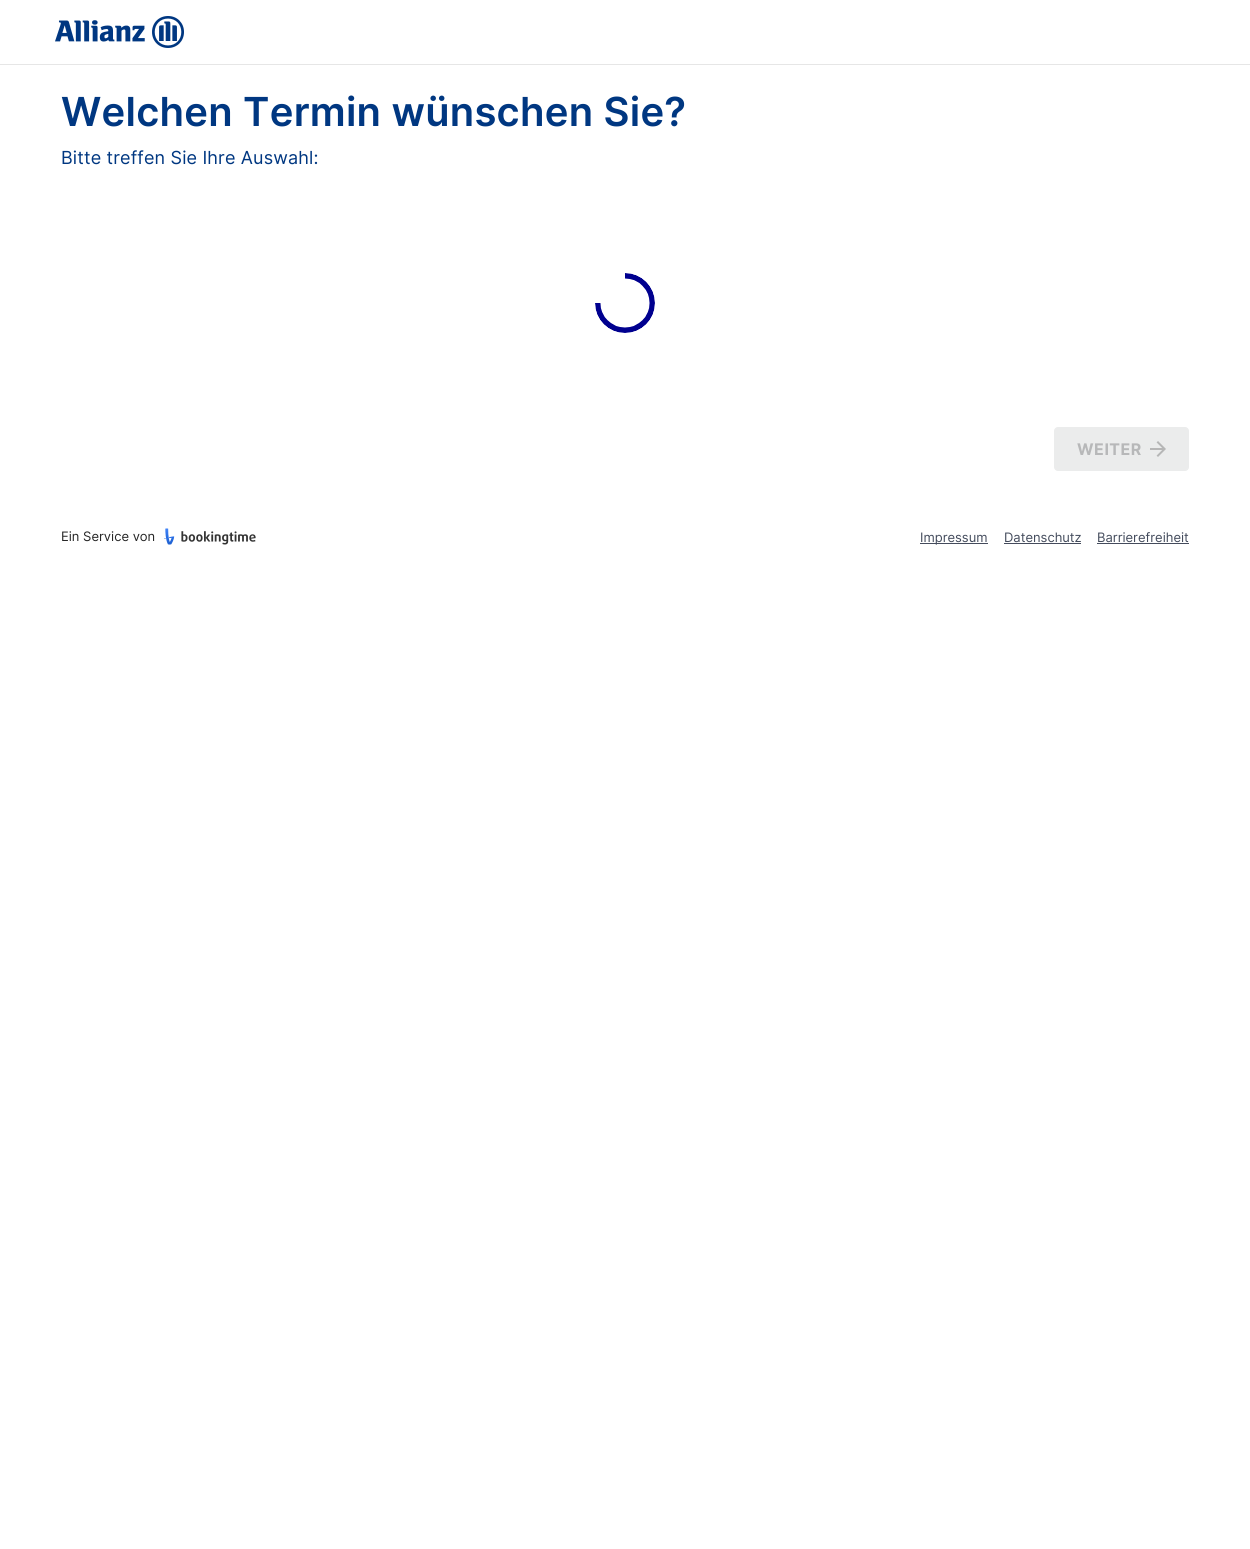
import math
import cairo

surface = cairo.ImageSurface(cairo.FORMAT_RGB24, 1250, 1549)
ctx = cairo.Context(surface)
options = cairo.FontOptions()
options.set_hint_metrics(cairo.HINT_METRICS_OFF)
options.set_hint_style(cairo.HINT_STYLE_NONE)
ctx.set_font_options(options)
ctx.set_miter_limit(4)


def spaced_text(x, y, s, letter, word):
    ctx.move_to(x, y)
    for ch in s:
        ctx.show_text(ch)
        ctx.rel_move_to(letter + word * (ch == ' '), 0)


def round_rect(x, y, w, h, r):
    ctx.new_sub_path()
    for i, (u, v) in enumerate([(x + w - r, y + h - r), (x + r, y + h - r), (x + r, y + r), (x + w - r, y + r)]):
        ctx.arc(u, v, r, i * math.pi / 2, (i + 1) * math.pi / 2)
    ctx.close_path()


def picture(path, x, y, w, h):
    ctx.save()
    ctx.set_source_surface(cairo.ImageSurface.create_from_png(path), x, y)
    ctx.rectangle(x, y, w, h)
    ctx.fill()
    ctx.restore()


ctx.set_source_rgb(1, 1, 1)
ctx.paint()
ctx.rectangle(-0.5, -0.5, 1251, 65)
ctx.set_source_rgb(0.902, 0.902, 0.902)
ctx.set_line_width(1)
ctx.stroke()
picture("img1.png", 55, 16, 129, 32)
ctx.select_font_face("Inter SemiBold")
ctx.set_font_size(40)
ctx.set_source_rgb(0, 0.216, 0.506)
spaced_text(61, 126, "Welchen Termin wünschen Sie?", 0.25, 0)
ctx.select_font_face("Inter")
ctx.set_font_size(18)
spaced_text(61, 164, "Bitte treffen Sie Ihre Auswahl:", 0.15, 0)
picture("img2.png", 595, 273, 60, 60)
ctx.set_source_rgb(0.918, 0.922, 0.925)
round_rect(1054.5, 427.5, 134, 43, 3.5)
ctx.fill_preserve()
ctx.stroke()
ctx.select_font_face("Inter", cairo.FONT_SLANT_NORMAL, cairo.FONT_WEIGHT_BOLD)
ctx.set_font_size(16)
ctx.set_source_rgb(0.718, 0.722, 0.725)
spaced_text(1077, 455, "WEITER", 0.5, 0)
picture("img3.png", 1150, 441, 16, 16)
ctx.select_font_face("Inter")
ctx.set_font_size(13)
ctx.set_source_rgb(0.149, 0.149, 0.149)
ctx.move_to(61, 541)
ctx.show_text("Ein Service von")
picture("img4.png", 164, 528, 92, 17)
ctx.set_source_rgb(0.267, 0.294, 0.361)
ctx.rectangle(920, 543, 68, 1)
ctx.fill()
ctx.set_source_rgb(0.263, 0.294, 0.361)
ctx.move_to(920, 542)
ctx.show_text("Impressum")
ctx.move_to(1004, 542)
ctx.show_text("Datenschutz")
ctx.set_source_rgb(0.267, 0.294, 0.361)
ctx.rectangle(1004, 543, 77, 1)
ctx.fill()
ctx.set_source_rgb(0.263, 0.294, 0.361)
ctx.move_to(1097, 542)
ctx.show_text("Barrierefreiheit")
ctx.set_source_rgb(0.267, 0.294, 0.361)
ctx.rectangle(1097, 543, 92, 1)
ctx.fill()
surface.write_to_png("page.png")
